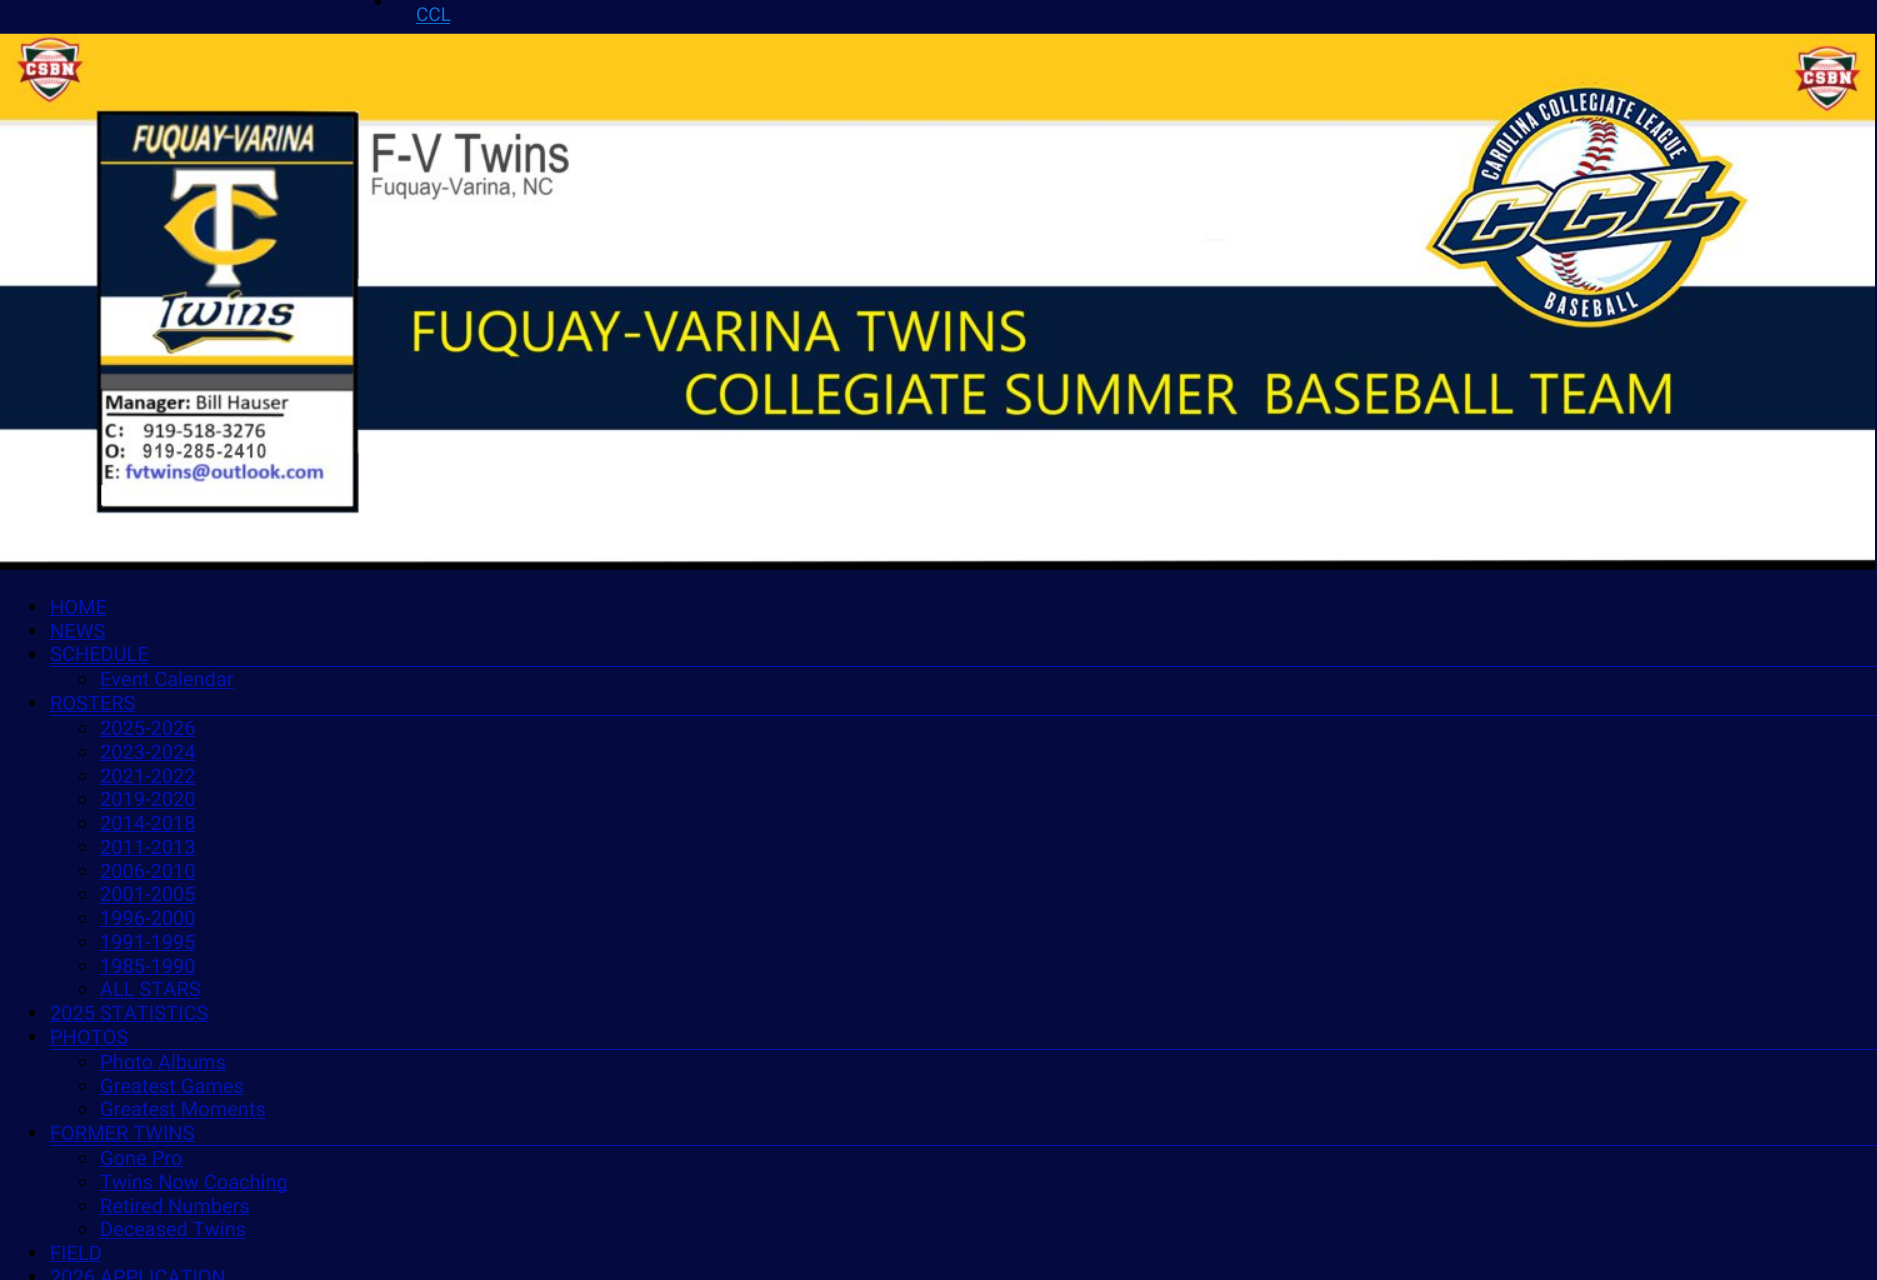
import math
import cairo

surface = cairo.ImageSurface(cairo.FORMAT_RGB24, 1877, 1280)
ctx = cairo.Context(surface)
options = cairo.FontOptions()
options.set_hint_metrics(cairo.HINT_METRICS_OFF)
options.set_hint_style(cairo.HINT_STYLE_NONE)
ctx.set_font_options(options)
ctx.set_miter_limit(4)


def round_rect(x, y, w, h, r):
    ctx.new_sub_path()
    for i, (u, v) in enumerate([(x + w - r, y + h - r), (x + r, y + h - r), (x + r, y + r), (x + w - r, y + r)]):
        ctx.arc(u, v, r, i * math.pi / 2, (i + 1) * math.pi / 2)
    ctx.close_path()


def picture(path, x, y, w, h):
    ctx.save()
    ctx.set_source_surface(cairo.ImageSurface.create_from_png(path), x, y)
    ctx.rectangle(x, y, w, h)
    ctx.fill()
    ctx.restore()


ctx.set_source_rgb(0.016, 0.039, 0.247)
ctx.paint()
ctx.set_source_rgb(0, 0, 0)
ctx.arc(378, 2, 3, 0, 2 * math.pi)
ctx.fill()
ctx.select_font_face("Roboto")
ctx.set_font_size(19)
ctx.set_source_rgb(0.063, 0.431, 0.8)
ctx.move_to(416, 21)
ctx.show_text("CCL")
ctx.rectangle(416, 23, 34, 1)
ctx.fill()
picture("img1.png", 0, 33, 1875, 537)
ctx.set_source_rgb(0, 0, 0)
ctx.arc(32, 607, 3, 0, 2 * math.pi)
ctx.fill()
ctx.set_font_size(20)
ctx.set_source_rgb(0, 0.078, 0.698)
ctx.move_to(50, 614)
ctx.show_text("HOME")
ctx.rectangle(50, 615, 56, 1)
ctx.fill()
ctx.set_source_rgb(0, 0, 0)
ctx.arc(32, 631, 3, 0, 2 * math.pi)
ctx.fill()
ctx.set_source_rgb(0, 0.078, 0.698)
ctx.move_to(50, 638)
ctx.show_text("NEWS")
ctx.rectangle(50, 639, 55, 1)
ctx.fill()
ctx.set_source_rgb(0, 0, 0)
round_rect(29, 651, 6, 7, 3)
ctx.fill()
ctx.set_source_rgb(0, 0.078, 0.698)
ctx.move_to(50, 661)
ctx.show_text("SCHEDULE")
ctx.rectangle(50, 663, 99, 1)
ctx.fill()
ctx.rectangle(50, 666, 1827, 1)
ctx.fill()
round_rect(79.5, 676.5, 6, 7, 3)
ctx.set_source_rgb(0, 0, 0)
ctx.set_line_width(1)
ctx.stroke()
ctx.set_source_rgb(0, 0.078, 0.698)
ctx.move_to(100, 686)
ctx.show_text("Event Calendar")
ctx.rectangle(100, 688, 134, 1)
ctx.fill()
ctx.set_source_rgb(0, 0, 0)
ctx.arc(32, 703, 3, 0, 2 * math.pi)
ctx.fill()
ctx.set_source_rgb(0, 0.078, 0.698)
ctx.move_to(50, 710)
ctx.show_text("ROSTERS")
ctx.rectangle(50, 711, 85, 1)
ctx.fill()
ctx.rectangle(50, 715, 1827, 1)
ctx.fill()
round_rect(79.5, 725.5, 6, 7, 3)
ctx.set_source_rgb(0, 0, 0)
ctx.stroke()
ctx.set_source_rgb(0, 0.078, 0.698)
ctx.move_to(100, 735)
ctx.show_text("2025-2026")
ctx.rectangle(100, 736, 95, 1)
ctx.fill()
ctx.arc(82.5, 752.5, 3, 0, 2 * math.pi)
ctx.set_source_rgb(0, 0, 0)
ctx.stroke()
ctx.set_source_rgb(0, 0.078, 0.698)
ctx.move_to(100, 759)
ctx.show_text("2023-2024")
ctx.rectangle(100, 760, 95, 1)
ctx.fill()
ctx.arc(82.5, 776.5, 3, 0, 2 * math.pi)
ctx.set_source_rgb(0, 0, 0)
ctx.stroke()
ctx.set_source_rgb(0, 0.078, 0.698)
ctx.move_to(100, 783)
ctx.show_text("2021-2022")
ctx.rectangle(100, 784, 95, 1)
ctx.fill()
round_rect(79.5, 796.5, 6, 7, 3)
ctx.set_source_rgb(0, 0, 0)
ctx.stroke()
ctx.set_source_rgb(0, 0.078, 0.698)
ctx.move_to(100, 806)
ctx.show_text("2019-2020")
ctx.rectangle(100, 808, 95, 1)
ctx.fill()
round_rect(79.5, 820.5, 6, 7, 3)
ctx.set_source_rgb(0, 0, 0)
ctx.stroke()
ctx.set_source_rgb(0, 0.078, 0.698)
ctx.move_to(100, 830)
ctx.show_text("2014-2018")
ctx.rectangle(100, 831, 95, 1)
ctx.fill()
ctx.arc(82.5, 847.5, 3, 0, 2 * math.pi)
ctx.set_source_rgb(0, 0, 0)
ctx.stroke()
ctx.set_source_rgb(0, 0.078, 0.698)
ctx.move_to(100, 854)
ctx.show_text("2011-2013")
ctx.rectangle(100, 855, 95, 1)
ctx.fill()
ctx.arc(82.5, 871.5, 3, 0, 2 * math.pi)
ctx.set_source_rgb(0, 0, 0)
ctx.stroke()
ctx.set_source_rgb(0, 0.078, 0.698)
ctx.move_to(100, 878)
ctx.show_text("2006-2010")
ctx.rectangle(100, 879, 95, 1)
ctx.fill()
round_rect(79.5, 891.5, 6, 7, 3)
ctx.set_source_rgb(0, 0, 0)
ctx.stroke()
ctx.set_source_rgb(0, 0.078, 0.698)
ctx.move_to(100, 901)
ctx.show_text("2001-2005")
ctx.rectangle(100, 903, 95, 1)
ctx.fill()
round_rect(79.5, 915.5, 6, 7, 3)
ctx.set_source_rgb(0, 0, 0)
ctx.stroke()
ctx.set_source_rgb(0, 0.078, 0.698)
ctx.move_to(100, 925)
ctx.show_text("1996-2000")
ctx.rectangle(100, 926, 95, 1)
ctx.fill()
ctx.arc(82.5, 942.5, 3, 0, 2 * math.pi)
ctx.set_source_rgb(0, 0, 0)
ctx.stroke()
ctx.set_source_rgb(0, 0.078, 0.698)
ctx.move_to(100, 949)
ctx.show_text("1991-1995")
ctx.rectangle(100, 950, 95, 1)
ctx.fill()
ctx.arc(82.5, 966.5, 3, 0, 2 * math.pi)
ctx.set_source_rgb(0, 0, 0)
ctx.stroke()
ctx.set_source_rgb(0, 0.078, 0.698)
ctx.move_to(100, 973)
ctx.show_text("1985-1990")
ctx.rectangle(100, 974, 95, 1)
ctx.fill()
round_rect(79.5, 986.5, 6, 7, 3)
ctx.set_source_rgb(0, 0, 0)
ctx.stroke()
ctx.set_source_rgb(0, 0.078, 0.698)
ctx.move_to(100, 996)
ctx.show_text("ALL STARS")
ctx.rectangle(100, 998, 100, 1)
ctx.fill()
ctx.set_source_rgb(0, 0, 0)
ctx.arc(32, 1013, 3, 0, 2 * math.pi)
ctx.fill()
ctx.set_source_rgb(0, 0.078, 0.698)
ctx.move_to(50, 1020)
ctx.show_text("2025 STATISTICS")
ctx.rectangle(50, 1021, 159, 1)
ctx.fill()
ctx.set_source_rgb(0, 0, 0)
ctx.arc(32, 1037, 3, 0, 2 * math.pi)
ctx.fill()
ctx.set_source_rgb(0, 0.078, 0.698)
ctx.move_to(50, 1044)
ctx.show_text("PHOTOS")
ctx.rectangle(50, 1045, 79, 1)
ctx.fill()
ctx.rectangle(50, 1049, 1827, 1)
ctx.fill()
ctx.arc(82.5, 1062.5, 3, 0, 2 * math.pi)
ctx.set_source_rgb(0, 0, 0)
ctx.stroke()
ctx.set_source_rgb(0, 0.078, 0.698)
ctx.move_to(100, 1069)
ctx.show_text("Photo Albums")
ctx.rectangle(100, 1070, 126, 1)
ctx.fill()
ctx.arc(82.5, 1086.5, 3, 0, 2 * math.pi)
ctx.set_source_rgb(0, 0, 0)
ctx.stroke()
ctx.set_source_rgb(0, 0.078, 0.698)
ctx.move_to(100, 1093)
ctx.show_text("Greatest Games")
ctx.rectangle(100, 1094, 144, 1)
ctx.fill()
round_rect(79.5, 1106.5, 6, 7, 3)
ctx.set_source_rgb(0, 0, 0)
ctx.stroke()
ctx.set_source_rgb(0, 0.078, 0.698)
ctx.move_to(100, 1116)
ctx.show_text("Greatest Moments")
ctx.rectangle(100, 1118, 166, 1)
ctx.fill()
ctx.set_source_rgb(0, 0, 0)
ctx.arc(32, 1133, 3, 0, 2 * math.pi)
ctx.fill()
ctx.set_source_rgb(0, 0.078, 0.698)
ctx.move_to(50, 1140)
ctx.show_text("FORMER TWINS")
ctx.rectangle(50, 1141, 145, 1)
ctx.fill()
ctx.rectangle(50, 1145, 1827, 1)
ctx.fill()
round_rect(79.5, 1155.5, 6, 7, 3)
ctx.set_source_rgb(0, 0, 0)
ctx.stroke()
ctx.set_source_rgb(0, 0.078, 0.698)
ctx.move_to(100, 1165)
ctx.show_text("Gone Pro")
ctx.rectangle(100, 1166, 83, 1)
ctx.fill()
ctx.arc(82.5, 1182.5, 3, 0, 2 * math.pi)
ctx.set_source_rgb(0, 0, 0)
ctx.stroke()
ctx.set_source_rgb(0, 0.078, 0.698)
ctx.rectangle(100, 1190, 188, 1)
ctx.fill()
ctx.move_to(100, 1189)
ctx.show_text("Twins Now Coaching")
ctx.new_path()
ctx.arc(82.5, 1206.5, 3, 0, 2 * math.pi)
ctx.set_source_rgb(0, 0, 0)
ctx.stroke()
ctx.set_source_rgb(0, 0.078, 0.698)
ctx.move_to(100, 1213)
ctx.show_text("Retired Numbers")
ctx.rectangle(100, 1214, 150, 1)
ctx.fill()
round_rect(79.5, 1226.5, 6, 7, 3)
ctx.set_source_rgb(0, 0, 0)
ctx.stroke()
ctx.set_source_rgb(0, 0.078, 0.698)
ctx.move_to(100, 1236)
ctx.show_text("Deceased Twins")
ctx.rectangle(100, 1238, 146, 1)
ctx.fill()
ctx.set_source_rgb(0, 0, 0)
ctx.arc(32, 1253, 3, 0, 2 * math.pi)
ctx.fill()
ctx.set_source_rgb(0, 0.078, 0.698)
ctx.move_to(50, 1260)
ctx.show_text("FIELD")
ctx.rectangle(50, 1261, 51, 1)
ctx.fill()
ctx.set_source_rgb(0, 0, 0)
ctx.arc(32, 1277, 3, 0, 2 * math.pi)
ctx.fill()
ctx.set_source_rgb(0, 0.078, 0.698)
ctx.move_to(50, 1284)
ctx.show_text("2026 APPLICATION")
surface.write_to_png("page.png")
